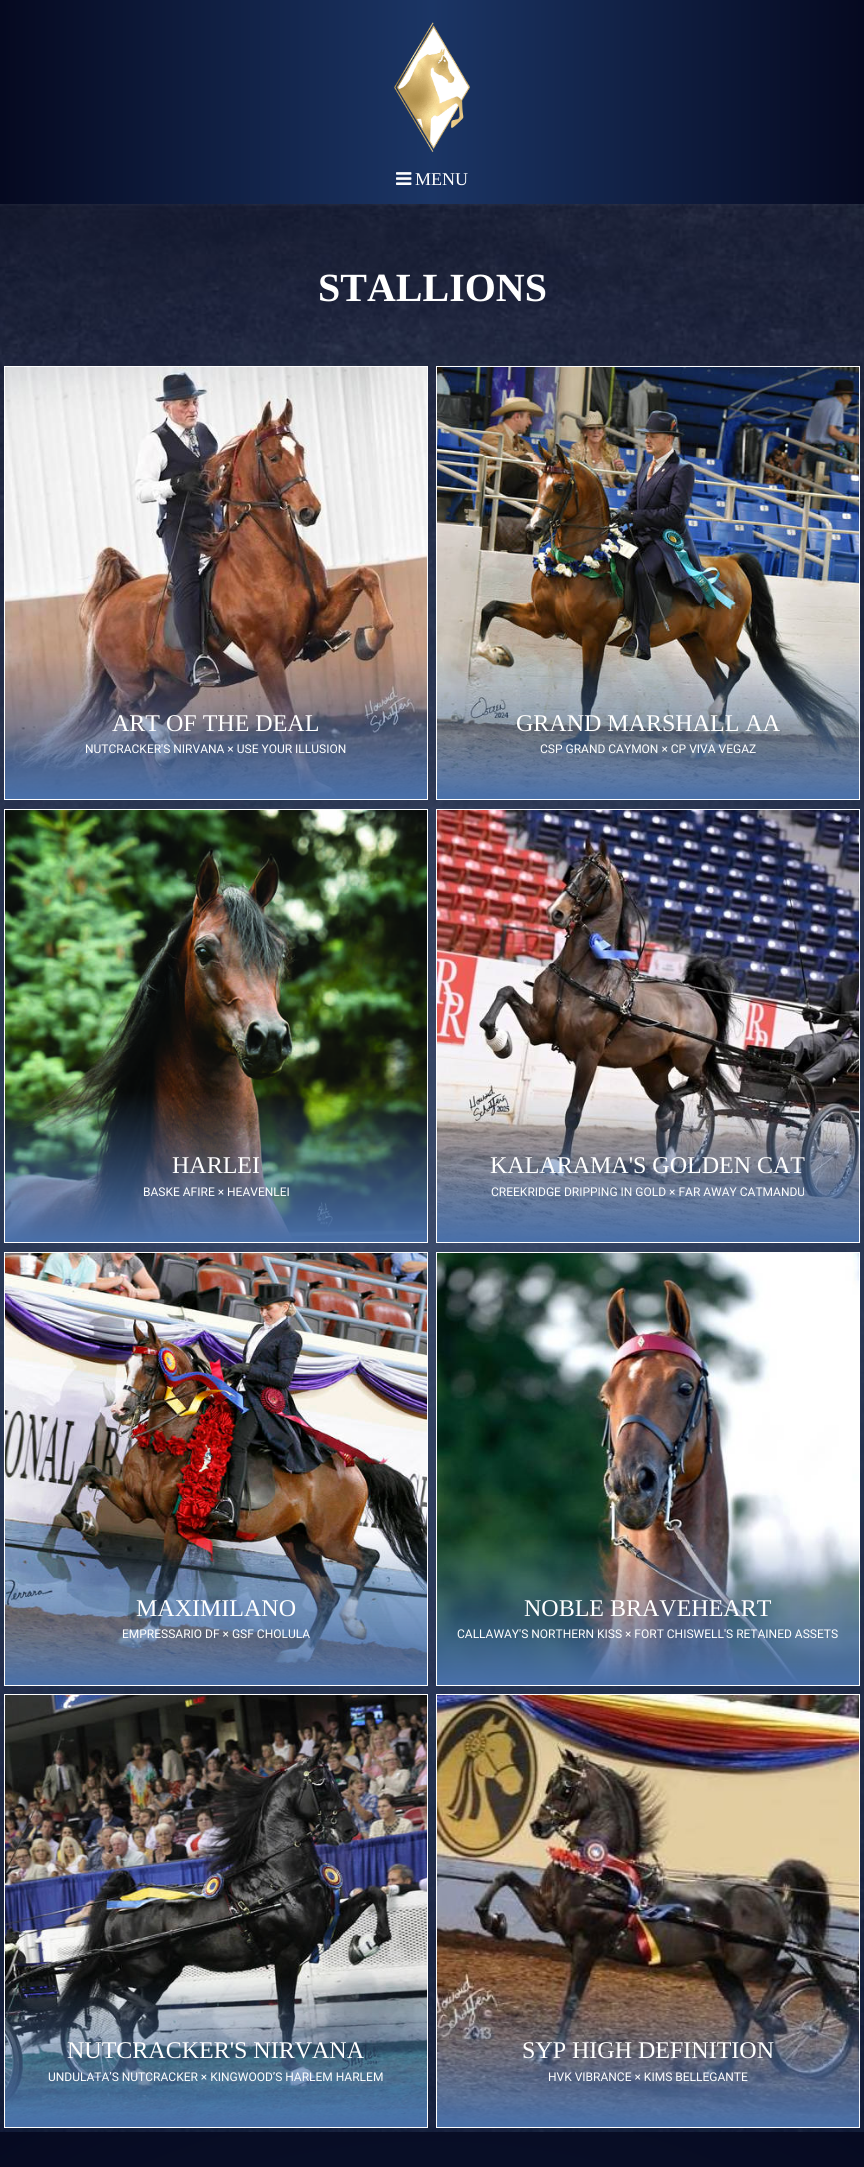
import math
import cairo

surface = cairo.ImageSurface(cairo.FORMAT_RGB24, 864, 2167)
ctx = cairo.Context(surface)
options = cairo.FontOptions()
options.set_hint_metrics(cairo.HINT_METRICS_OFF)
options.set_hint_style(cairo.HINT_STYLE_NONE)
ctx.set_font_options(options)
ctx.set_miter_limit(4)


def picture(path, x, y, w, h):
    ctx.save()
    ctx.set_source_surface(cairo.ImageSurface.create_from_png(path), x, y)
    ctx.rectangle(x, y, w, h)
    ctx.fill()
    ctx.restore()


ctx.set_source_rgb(1, 1, 1)
ctx.paint()
gradient = cairo.LinearGradient(0, 102, 864, 102)
gradient.add_color_stop_rgba(0, 0.02, 0.035, 0.125, 1)
gradient.add_color_stop_rgba(0.5, 0.106, 0.208, 0.396, 1)
gradient.add_color_stop_rgba(1, 0.02, 0.035, 0.125, 1)
ctx.set_source(gradient)
ctx.rectangle(0, 0, 864, 204)
ctx.fill()
picture("img1.png", 394, 22, 76, 130)
picture("img2.png", 396, 172, 16, 13)
ctx.select_font_face("Liberation Serif")
ctx.set_font_size(18)
ctx.set_source_rgb(1, 1, 1)
ctx.move_to(415, 185)
ctx.show_text("MENU")
picture("img3.png", 0, 204, 864, 1928)
ctx.select_font_face("Liberation Serif", cairo.FONT_SLANT_NORMAL, cairo.FONT_WEIGHT_BOLD)
ctx.set_font_size(40)
ctx.move_to(318, 301)
ctx.show_text("STALLIONS")
picture("img4.png", 5, 367, 422, 432)
ctx.rectangle(4.5, 366.5, 423, 433)
ctx.set_line_width(1)
ctx.stroke()
ctx.select_font_face("Liberation Serif")
ctx.set_font_size(24)
ctx.move_to(112, 731)
ctx.show_text("ART OF THE DEAL")
ctx.select_font_face("Roboto")
ctx.set_font_size(12)
ctx.move_to(85, 753)
ctx.show_text("NUTCRACKER'S NIRVANA × USE YOUR ILLUSION")
picture("img5.png", 437, 367, 422, 432)
ctx.rectangle(436.5, 366.5, 423, 433)
ctx.stroke()
ctx.select_font_face("Liberation Serif")
ctx.set_font_size(24)
ctx.move_to(516, 731)
ctx.show_text("GRAND MARSHALL AA")
ctx.select_font_face("Roboto")
ctx.set_font_size(12)
ctx.move_to(540, 753)
ctx.show_text("CSP GRAND CAYMON × CP VIVA VEGAZ")
picture("img6.png", 5, 810, 422, 432)
ctx.rectangle(4.5, 809.5, 423, 433)
ctx.stroke()
ctx.select_font_face("Liberation Serif")
ctx.set_font_size(24)
ctx.move_to(172, 1173)
ctx.show_text("HARLEI")
ctx.select_font_face("Roboto")
ctx.set_font_size(12)
ctx.move_to(143, 1196)
ctx.show_text("BASKE AFIRE × HEAVENLEI")
picture("img7.png", 437, 810, 422, 432)
ctx.rectangle(436.5, 809.5, 423, 433)
ctx.stroke()
ctx.select_font_face("Liberation Serif")
ctx.set_font_size(24)
ctx.move_to(490, 1173)
ctx.show_text("KALARAMA'S GOLDEN CAT")
ctx.select_font_face("Roboto")
ctx.set_font_size(12)
ctx.move_to(491, 1196)
ctx.show_text("CREEKRIDGE DRIPPING IN GOLD × FAR AWAY CATMANDU")
picture("img8.png", 5, 1253, 422, 432)
ctx.rectangle(4.5, 1252.5, 423, 433)
ctx.stroke()
ctx.select_font_face("Liberation Serif")
ctx.set_font_size(24)
ctx.move_to(136, 1616)
ctx.show_text("MAXIMILANO")
ctx.select_font_face("Roboto")
ctx.set_font_size(12)
ctx.move_to(122, 1638)
ctx.show_text("EMPRESSARIO DF × GSF CHOLULA")
picture("img9.png", 437, 1253, 422, 432)
ctx.rectangle(436.5, 1252.5, 423, 433)
ctx.stroke()
ctx.select_font_face("Liberation Serif")
ctx.set_font_size(24)
ctx.move_to(524, 1616)
ctx.show_text("NOBLE BRAVEHEART")
ctx.select_font_face("Roboto")
ctx.set_font_size(12)
ctx.move_to(457, 1638)
ctx.show_text("CALLAWAY'S NORTHERN KISS × FORT CHISWELL'S RETAINED ASSETS")
picture("img10.png", 5, 1695, 422, 432)
ctx.rectangle(4.5, 1694.5, 423, 433)
ctx.stroke()
ctx.select_font_face("Liberation Serif")
ctx.set_font_size(24)
ctx.move_to(67, 2058)
ctx.show_text("NUTCRACKER'S NIRVANA")
ctx.select_font_face("Roboto")
ctx.set_font_size(12)
ctx.move_to(48, 2081)
ctx.show_text("UNDULATA’S NUTCRACKER × KINGWOOD’S HARLEM HARLEM")
picture("img11.png", 437, 1695, 422, 432)
ctx.rectangle(436.5, 1694.5, 423, 433)
ctx.stroke()
ctx.select_font_face("Liberation Serif")
ctx.set_font_size(24)
ctx.move_to(522, 2058)
ctx.show_text("SYP HIGH DEFINITION")
ctx.select_font_face("Roboto")
ctx.set_font_size(12)
ctx.move_to(548, 2081)
ctx.show_text("HVK VIBRANCE × KIMS BELLEGANTE")
gradient = cairo.RadialGradient(432, 2826, 0, 432, 2826, 817)
gradient.add_color_stop_rgba(0, 0.071, 0.125, 0.243, 1)
gradient.add_color_stop_rgba(1, 0.024, 0.039, 0.129, 1)
ctx.set_source(gradient)
ctx.rectangle(0, 2132, 864, 35)
ctx.fill()
surface.write_to_png("page.png")
